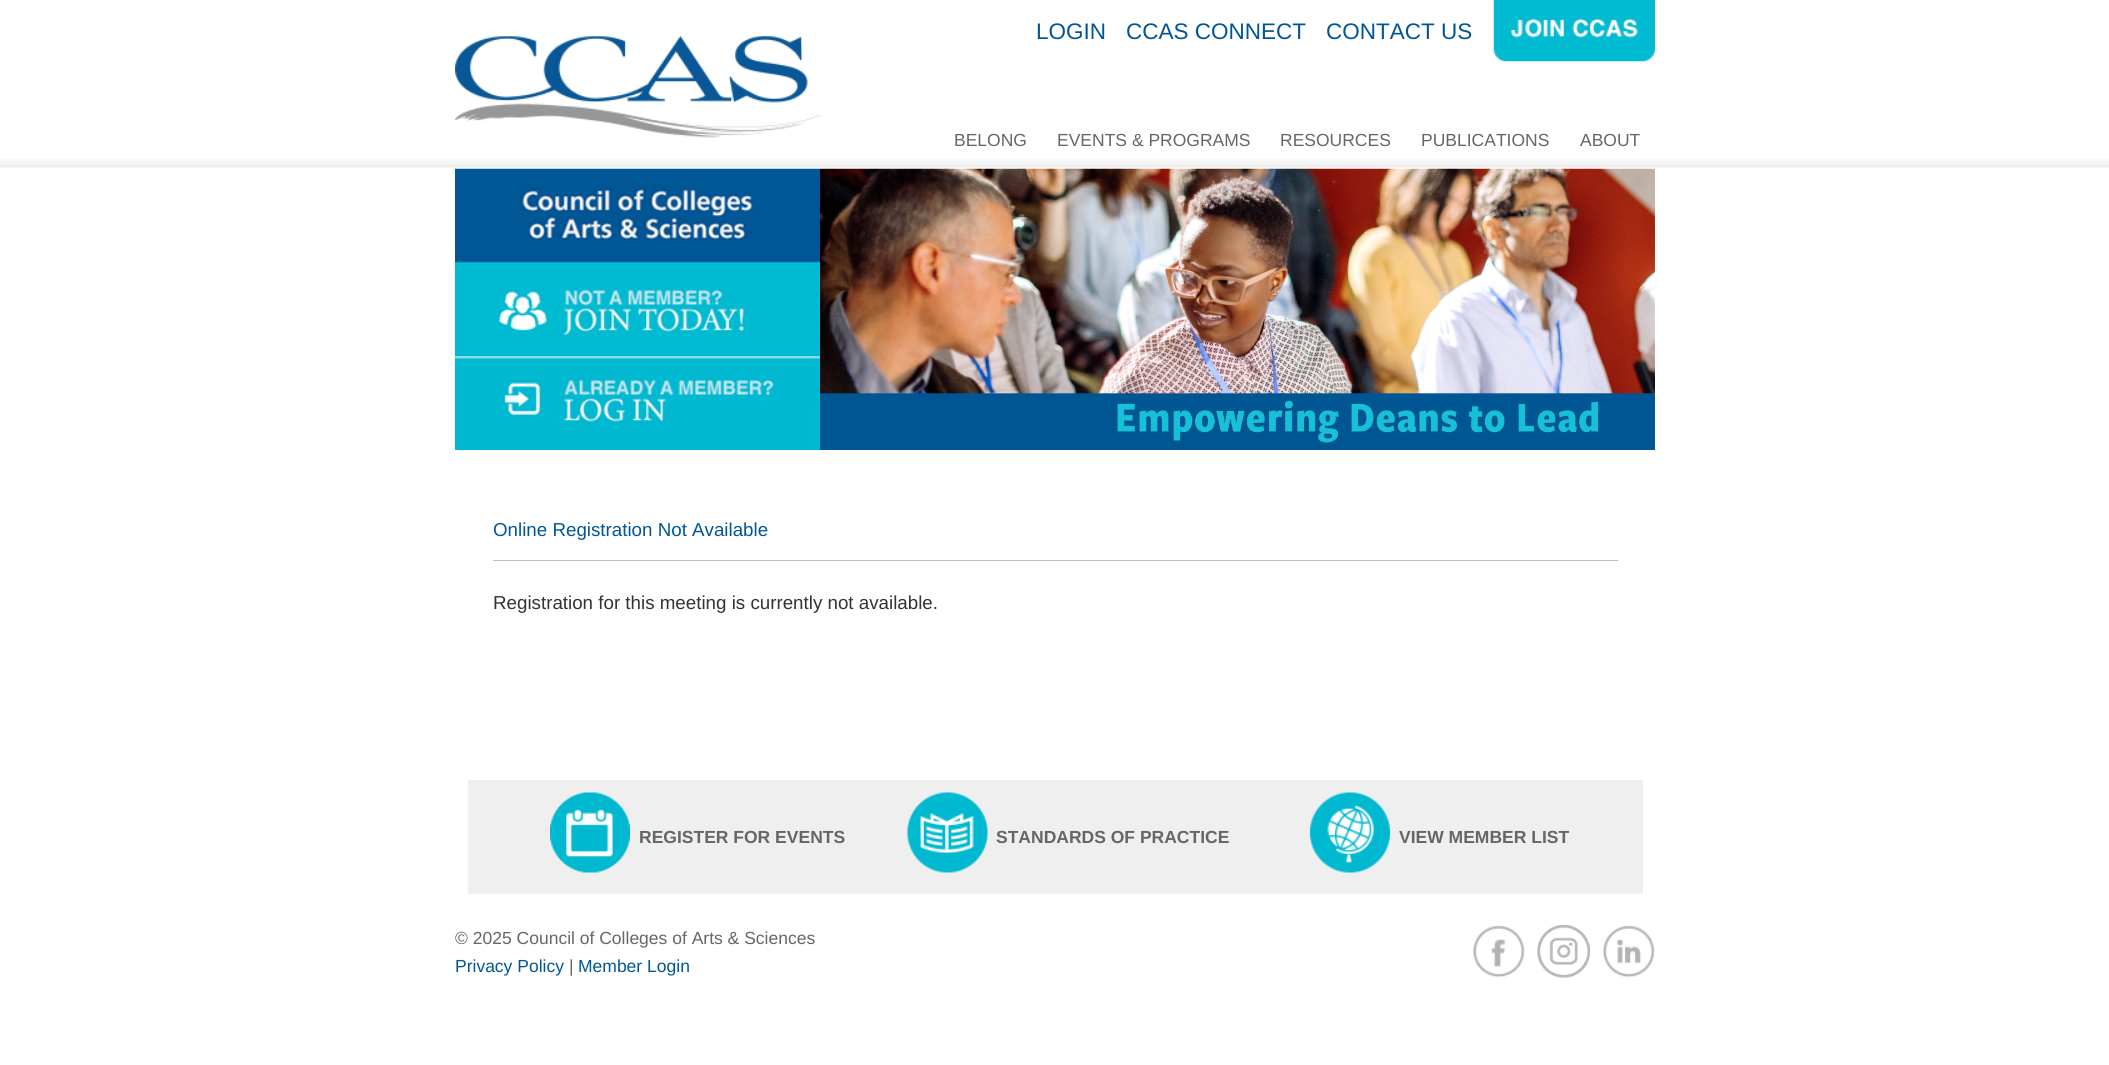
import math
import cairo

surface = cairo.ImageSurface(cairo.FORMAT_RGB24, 2109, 1065)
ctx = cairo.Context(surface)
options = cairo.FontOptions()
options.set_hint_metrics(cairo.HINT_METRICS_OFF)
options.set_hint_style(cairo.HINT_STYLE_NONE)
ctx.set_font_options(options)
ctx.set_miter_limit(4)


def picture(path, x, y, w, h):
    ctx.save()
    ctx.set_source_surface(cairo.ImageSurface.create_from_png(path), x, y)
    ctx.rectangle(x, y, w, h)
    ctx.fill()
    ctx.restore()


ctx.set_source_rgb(1, 1, 1)
ctx.paint()
picture("img1.png", 0, 159, 2109, 9)
ctx.select_font_face("Liberation Sans")
ctx.set_font_size(22.5)
ctx.set_source_rgb(0, 0.337, 0.584)
ctx.move_to(1036, 39)
ctx.show_text("LOGIN")
ctx.move_to(1126, 39)
ctx.show_text("CCAS CONNECT")
ctx.move_to(1326, 39)
ctx.show_text("CONTACT US")
picture("img2.png", 1493, 0, 162, 62)
picture("img3.png", 455, 36, 365, 102)
ctx.set_font_size(17.5)
ctx.set_source_rgb(0.4, 0.4, 0.4)
ctx.move_to(954, 146)
ctx.show_text("BELONG")
ctx.move_to(1057, 146)
ctx.show_text("EVENTS & PROGRAMS")
ctx.move_to(1280, 146)
ctx.show_text("RESOURCES")
ctx.move_to(1421, 146)
ctx.show_text("PUBLICATIONS")
ctx.move_to(1580, 146)
ctx.show_text("ABOUT")
picture("img4.png", 455, 168, 365, 282)
picture("img5.png", 820, 168, 835, 282)
ctx.set_font_size(18.75)
ctx.set_source_rgb(0, 0.337, 0.584)
ctx.move_to(493, 536)
ctx.show_text("Online Registration Not Available")
ctx.set_source_rgb(0.741, 0.741, 0.741)
ctx.rectangle(493, 560, 1125, 1)
ctx.fill()
ctx.set_source_rgb(0.2, 0.2, 0.2)
ctx.move_to(493, 609)
ctx.show_text("Registration for this meeting is currently not available.")
ctx.set_source_rgb(0.937, 0.937, 0.937)
ctx.rectangle(468, 780, 1175, 114)
ctx.fill()
picture("img6.png", 550, 792, 80, 81)
ctx.select_font_face("Liberation Sans", cairo.FONT_SLANT_NORMAL, cairo.FONT_WEIGHT_BOLD)
ctx.set_font_size(17.5)
ctx.set_source_rgb(0.4, 0.4, 0.4)
ctx.move_to(639, 843)
ctx.show_text("REGISTER FOR EVENTS")
picture("img7.png", 907, 792, 81, 81)
ctx.move_to(996, 843)
ctx.show_text("STANDARDS OF PRACTICE")
picture("img8.png", 1310, 792, 80, 81)
ctx.move_to(1399, 843)
ctx.show_text("VIEW MEMBER LIST")
ctx.select_font_face("Liberation Sans")
ctx.move_to(455, 944)
ctx.show_text("© 2025 Council of Colleges of Arts & Sciences")
ctx.set_source_rgb(0, 0.337, 0.584)
ctx.move_to(455, 972)
ctx.show_text("Privacy Policy")
ctx.set_source_rgb(0.4, 0.4, 0.4)
ctx.move_to(569, 972)
ctx.show_text("|")
ctx.set_source_rgb(0, 0.337, 0.584)
ctx.move_to(578, 972)
ctx.show_text("Member Login")
picture("img9.png", 1472, 925, 53, 53)
picture("img10.png", 1537, 925, 53, 53)
picture("img11.png", 1602, 925, 53, 53)
surface.write_to_png("page.png")
